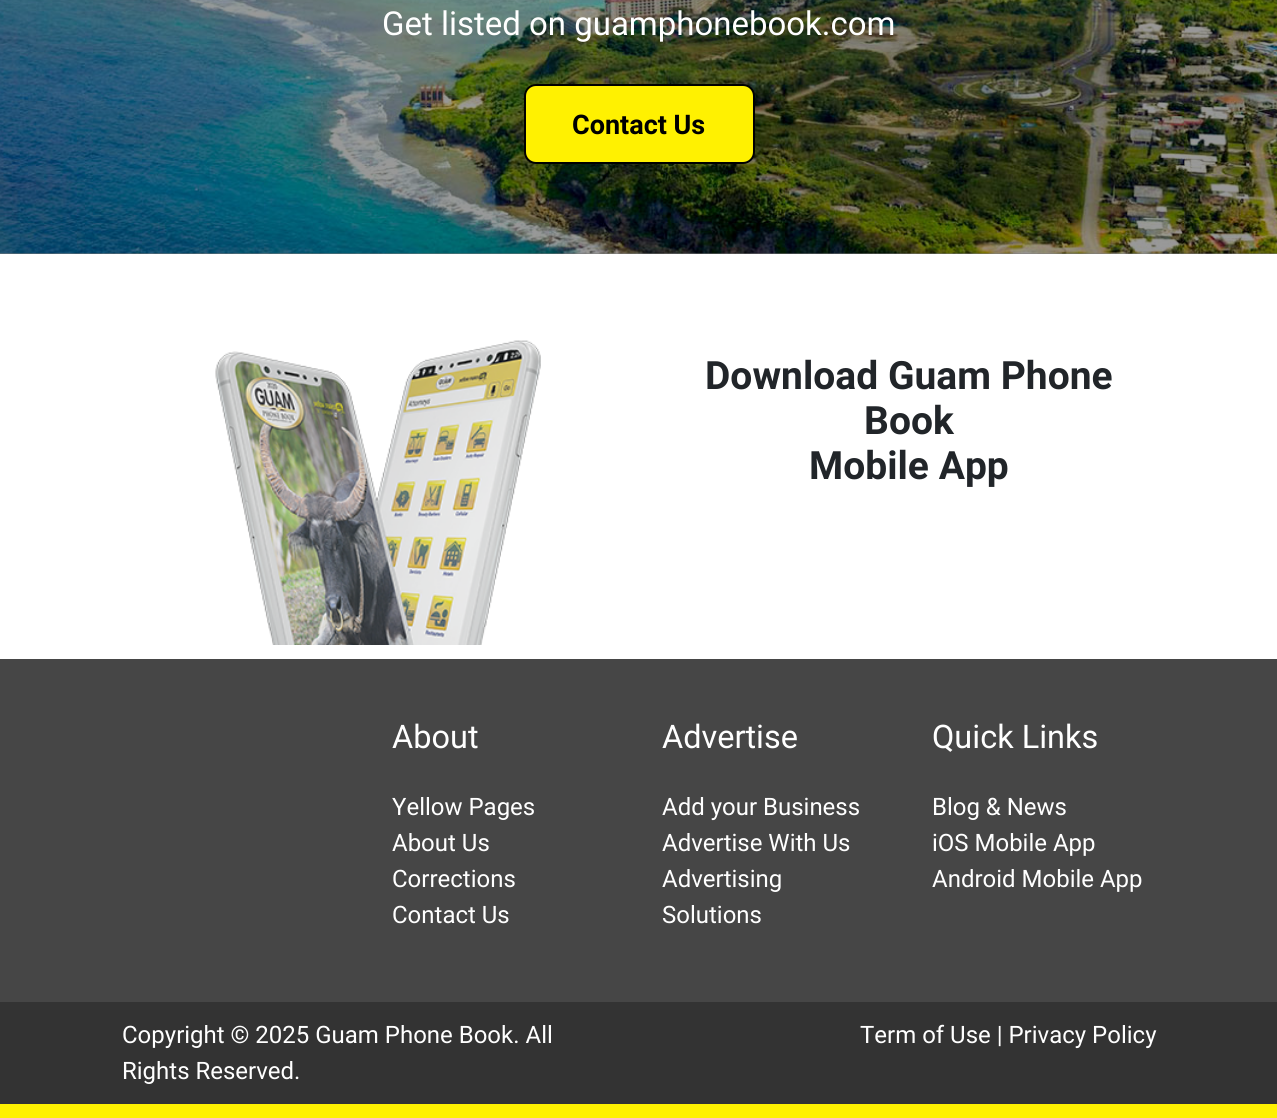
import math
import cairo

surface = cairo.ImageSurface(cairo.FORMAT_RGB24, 1277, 1118)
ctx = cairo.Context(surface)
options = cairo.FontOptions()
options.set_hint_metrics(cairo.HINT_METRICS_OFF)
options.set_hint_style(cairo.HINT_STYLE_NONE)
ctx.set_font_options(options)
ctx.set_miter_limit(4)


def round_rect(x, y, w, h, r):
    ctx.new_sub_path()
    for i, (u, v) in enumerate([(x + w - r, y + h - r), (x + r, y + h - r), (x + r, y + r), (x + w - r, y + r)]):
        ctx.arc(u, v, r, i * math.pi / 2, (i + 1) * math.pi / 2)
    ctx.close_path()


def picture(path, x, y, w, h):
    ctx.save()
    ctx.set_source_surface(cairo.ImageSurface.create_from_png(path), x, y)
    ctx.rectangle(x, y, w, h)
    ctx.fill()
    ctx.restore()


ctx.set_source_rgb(1, 1, 1)
ctx.paint()
ctx.set_source_rgb(0.478, 0.478, 0.478)
ctx.rectangle(0, 253, 1277, 1)
ctx.fill()
picture("img1.png", 0, 0, 1277, 254)
ctx.select_font_face("Roboto")
ctx.set_font_size(33)
ctx.set_source_rgb(1, 1, 1)
ctx.move_to(382, 35)
ctx.show_text("Get listed on guamphonebook.com")
ctx.set_source_rgb(1, 0.945, 0.004)
round_rect(525, 85, 229, 78, 11)
ctx.fill_preserve()
ctx.set_source_rgb(0, 0, 0)
ctx.stroke()
ctx.select_font_face("Roboto", cairo.FONT_SLANT_NORMAL, cairo.FONT_WEIGHT_BOLD)
ctx.set_font_size(27)
ctx.move_to(572, 134)
ctx.show_text("Contact Us")
picture("img2.png", 215, 340, 326, 305)
ctx.set_font_size(39)
ctx.set_source_rgb(0.129, 0.145, 0.161)
ctx.move_to(705, 389)
ctx.show_text("Download Guam Phone")
ctx.move_to(864, 434)
ctx.show_text("Book")
ctx.move_to(809, 479)
ctx.show_text("Mobile App")
ctx.set_source_rgb(0.275, 0.275, 0.275)
ctx.rectangle(0, 659, 1277, 343)
ctx.fill()
ctx.select_font_face("Roboto")
ctx.set_font_size(32.5)
ctx.set_source_rgb(1, 1, 1)
ctx.move_to(392, 748)
ctx.show_text("About")
ctx.set_font_size(24)
ctx.move_to(392, 815)
ctx.show_text("Yellow Pages")
ctx.move_to(392, 851)
ctx.show_text("About Us")
ctx.move_to(392, 887)
ctx.show_text("Corrections")
ctx.move_to(392, 923)
ctx.show_text("Contact Us")
ctx.set_font_size(32.5)
ctx.move_to(662, 748)
ctx.show_text("Advertise")
ctx.set_font_size(24)
ctx.move_to(662, 815)
ctx.show_text("Add your Business")
ctx.move_to(662, 851)
ctx.show_text("Advertise With Us")
ctx.move_to(662, 887)
ctx.show_text("Advertising")
ctx.move_to(662, 923)
ctx.show_text("Solutions")
ctx.set_font_size(32.5)
ctx.move_to(932, 748)
ctx.show_text("Quick Links")
ctx.set_font_size(24)
ctx.move_to(932, 815)
ctx.show_text("Blog & News")
ctx.move_to(932, 851)
ctx.show_text("iOS Mobile App")
ctx.move_to(932, 887)
ctx.show_text("Android Mobile App")
ctx.set_source_rgb(0.2, 0.2, 0.2)
ctx.rectangle(0, 1002, 1277, 102)
ctx.fill()
ctx.set_source_rgb(1, 0.945, 0.004)
ctx.rectangle(0, 1104, 1277, 14)
ctx.fill()
ctx.set_source_rgb(1, 1, 1)
ctx.move_to(122, 1043)
ctx.show_text("Copyright © 2025 Guam Phone Book. All")
ctx.move_to(122, 1079)
ctx.show_text("Rights Reserved.")
ctx.move_to(860, 1043)
ctx.show_text("Term of Use | Privacy Policy")
surface.write_to_png("page.png")
